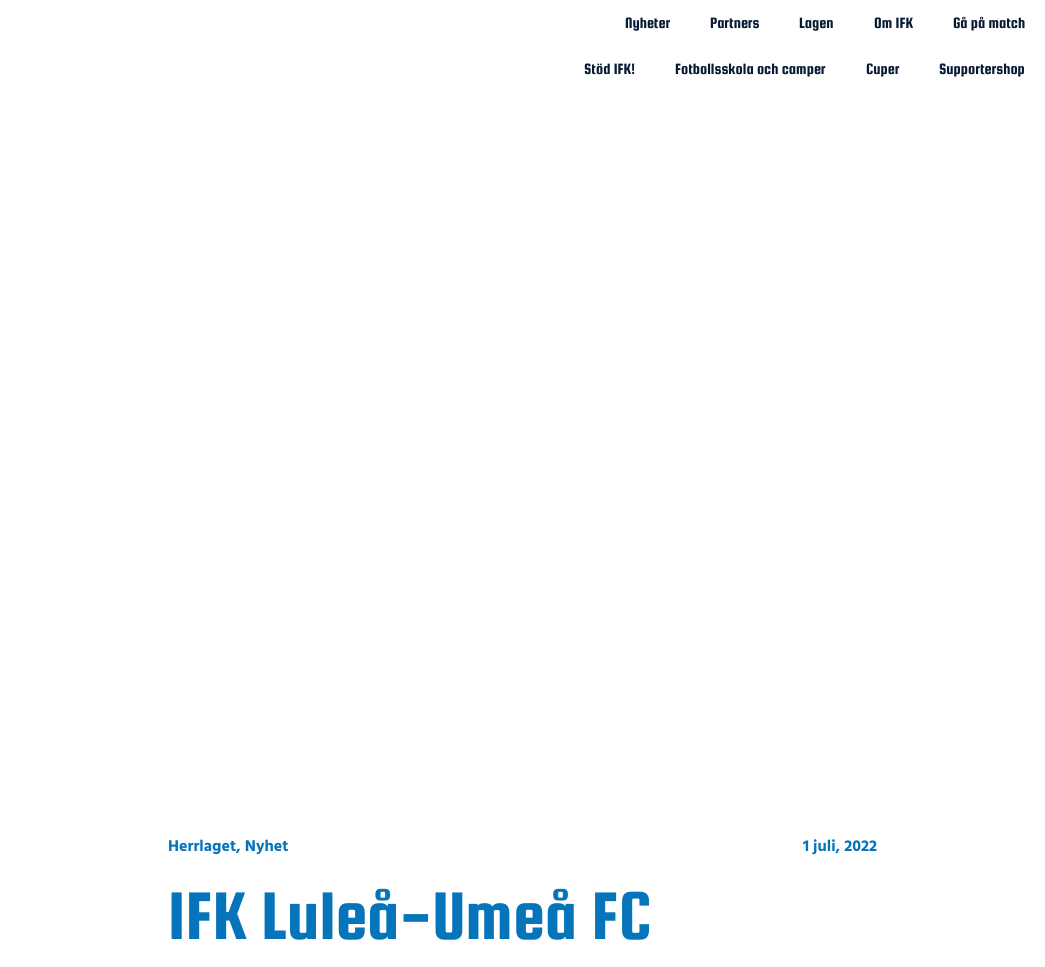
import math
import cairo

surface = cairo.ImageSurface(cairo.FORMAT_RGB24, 1045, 967)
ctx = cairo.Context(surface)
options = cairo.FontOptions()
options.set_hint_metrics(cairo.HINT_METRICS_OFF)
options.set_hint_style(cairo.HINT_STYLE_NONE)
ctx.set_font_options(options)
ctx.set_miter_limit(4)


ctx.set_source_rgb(1, 1, 1)
ctx.paint()
ctx.select_font_face("Squada One")
ctx.set_font_size(16)
ctx.set_source_rgb(0.035, 0.102, 0.204)
ctx.move_to(625, 28)
ctx.show_text("Nyheter")
ctx.move_to(710, 28)
ctx.show_text("Partners")
ctx.move_to(799, 28)
ctx.show_text("Lagen")
ctx.move_to(874, 28)
ctx.show_text("Om IFK")
ctx.move_to(953, 28)
ctx.show_text("Gå på match")
ctx.move_to(584, 74)
ctx.show_text("Stöd IFK!")
ctx.move_to(675, 74)
ctx.show_text("Fotbollsskola och camper")
ctx.move_to(866, 74)
ctx.show_text("Cuper")
ctx.move_to(939, 74)
ctx.show_text("Supportershop")
ctx.select_font_face("Hind", cairo.FONT_SLANT_NORMAL, cairo.FONT_WEIGHT_BOLD)
ctx.set_source_rgb(0.024, 0.455, 0.733)
ctx.move_to(168, 851)
ctx.show_text("Herrlaget, Nyhet")
ctx.move_to(803, 851)
ctx.show_text("1 juli, 2022")
ctx.select_font_face("Squada One")
ctx.set_font_size(72)
ctx.move_to(168, 939)
ctx.show_text("IFK Luleå-Umeå FC")
surface.write_to_png("page.png")
